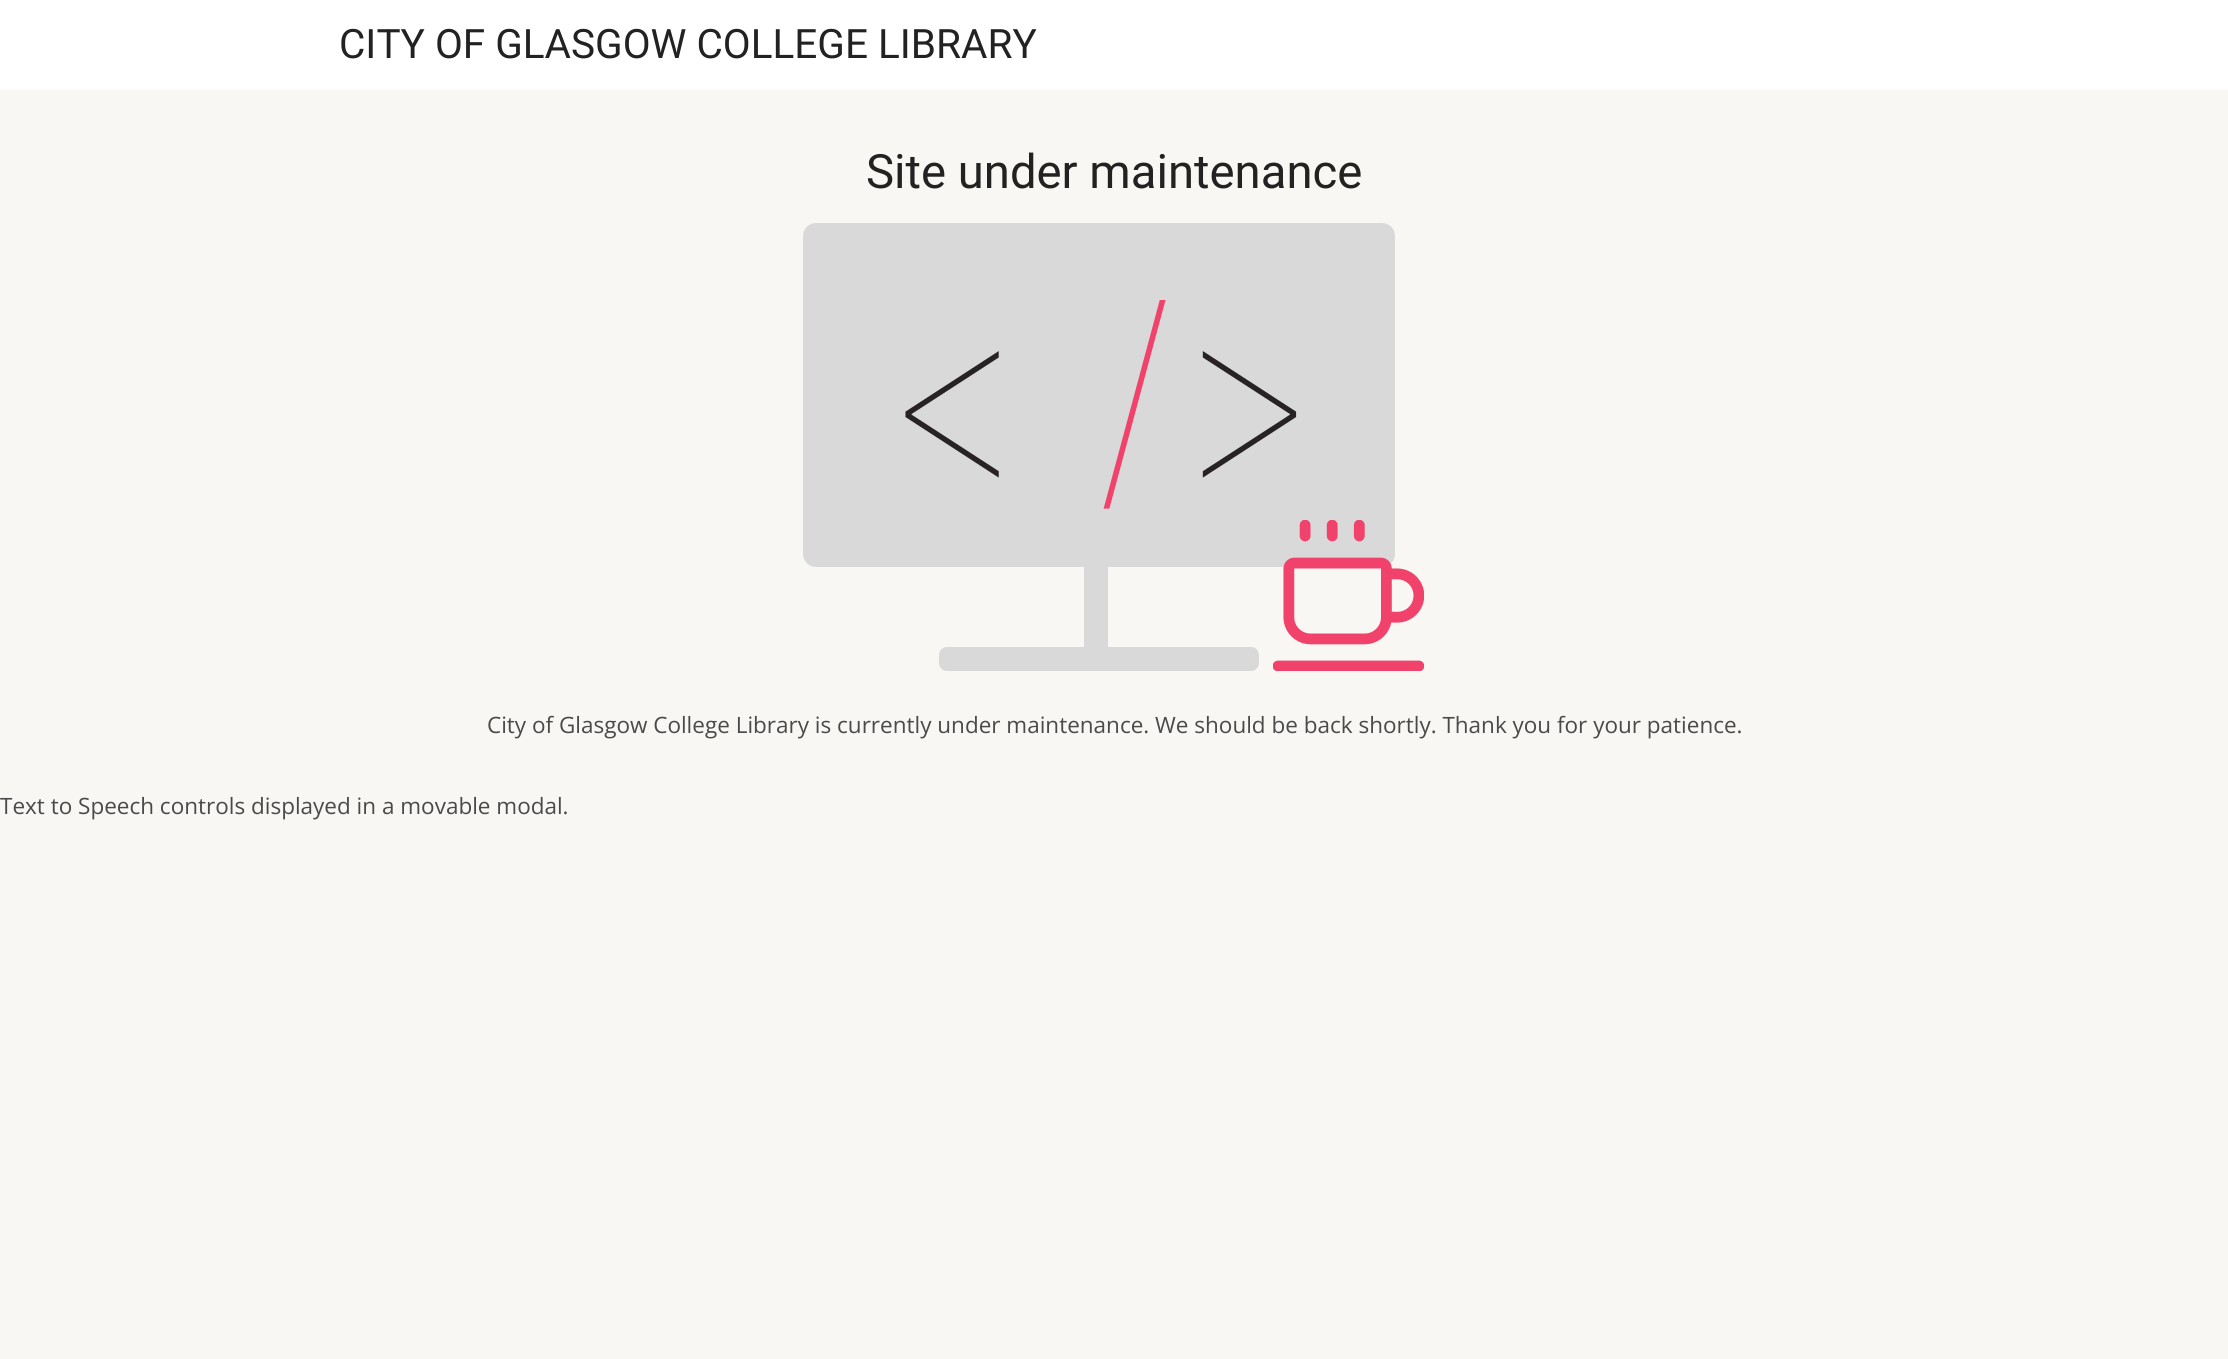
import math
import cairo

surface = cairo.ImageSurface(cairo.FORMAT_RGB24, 2228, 1359)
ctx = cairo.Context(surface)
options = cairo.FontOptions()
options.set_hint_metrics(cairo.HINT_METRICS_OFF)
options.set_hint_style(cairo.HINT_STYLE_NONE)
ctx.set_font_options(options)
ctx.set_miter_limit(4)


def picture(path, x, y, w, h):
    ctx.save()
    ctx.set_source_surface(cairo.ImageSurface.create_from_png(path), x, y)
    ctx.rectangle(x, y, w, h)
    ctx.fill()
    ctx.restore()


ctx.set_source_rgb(0.976, 0.965, 0.953)
ctx.paint()
ctx.set_source_rgb(1, 1, 1)
ctx.rectangle(0, 0, 2228, 90)
ctx.fill()
ctx.select_font_face("Roboto")
ctx.set_font_size(40.5)
ctx.set_source_rgb(0.133, 0.133, 0.133)
ctx.move_to(339, 58)
ctx.show_text("CITY OF GLASGOW COLLEGE LIBRARY")
ctx.set_font_size(47.25)
ctx.move_to(866, 188)
ctx.show_text("Site under maintenance")
picture("img1.png", 803, 223, 621, 448)
ctx.select_font_face("Open Sans")
ctx.set_font_size(22.5)
ctx.set_source_rgb(0.29, 0.29, 0.29)
ctx.move_to(487, 733)
ctx.show_text("City of Glasgow College Library is currently under maintenance. We should be back shortly. Thank you for your patience.")
ctx.move_to(0, 814)
ctx.show_text("Text to Speech controls displayed in a movable modal.")
surface.write_to_png("page.png")
